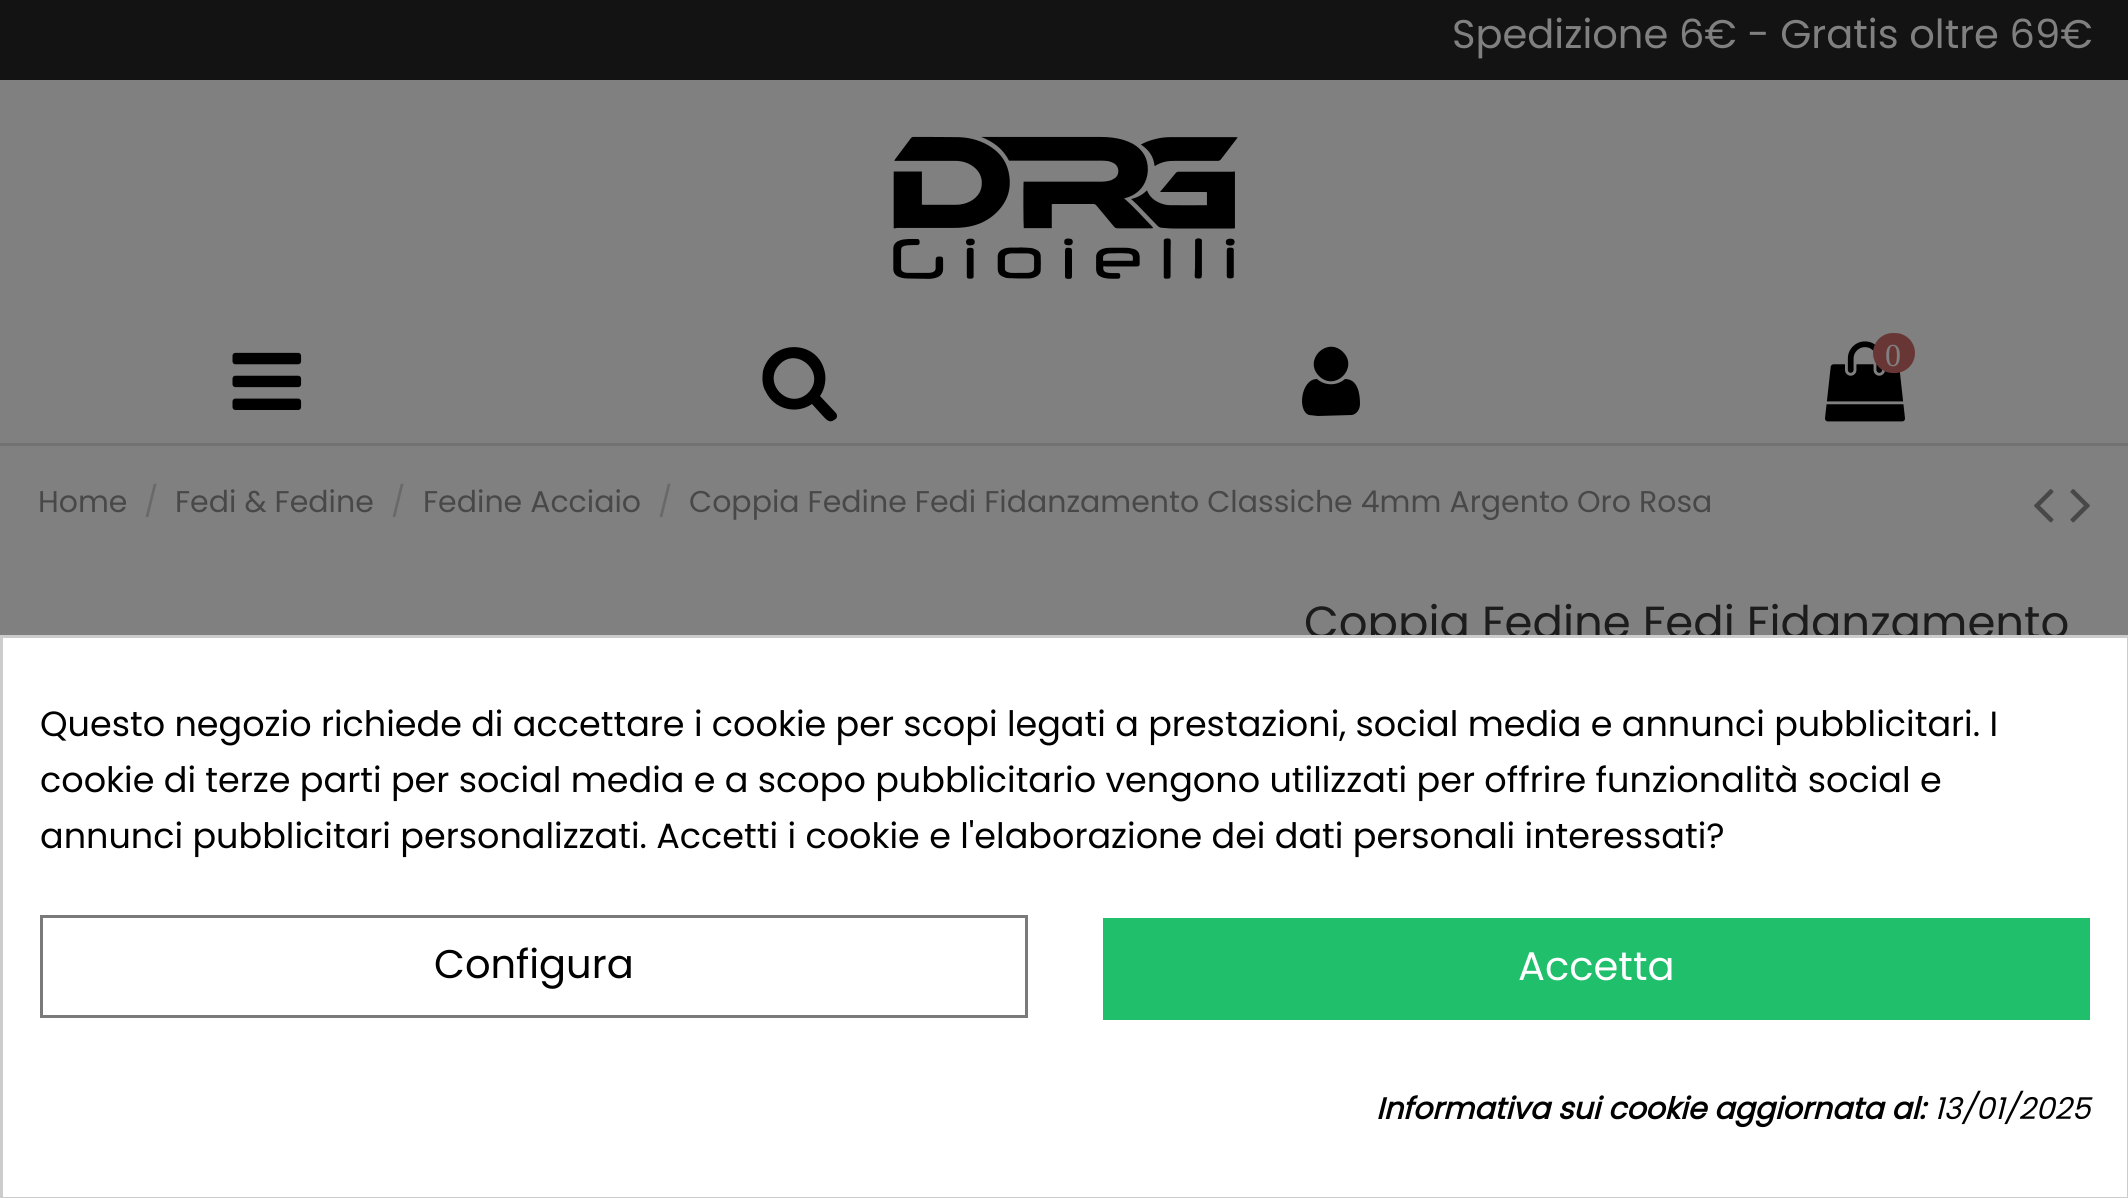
import math
import cairo

surface = cairo.ImageSurface(cairo.FORMAT_RGB24, 2128, 1198)
ctx = cairo.Context(surface)
options = cairo.FontOptions()
options.set_hint_metrics(cairo.HINT_METRICS_OFF)
options.set_hint_style(cairo.HINT_STYLE_NONE)
ctx.set_font_options(options)
ctx.set_miter_limit(4)


def round_rect(x, y, w, h, r):
    ctx.new_sub_path()
    for i, (u, v) in enumerate([(x + w - r, y + h - r), (x + r, y + h - r), (x + r, y + r), (x + w - r, y + r)]):
        ctx.arc(u, v, r, i * math.pi / 2, (i + 1) * math.pi / 2)
    ctx.close_path()


def picture(path, x, y, w, h):
    ctx.save()
    ctx.set_source_surface(cairo.ImageSurface.create_from_png(path), x, y)
    ctx.rectangle(x, y, w, h)
    ctx.fill()
    ctx.restore()


ctx.set_source_rgb(0.502, 0.502, 0.502)
ctx.paint()
ctx.set_source_rgb(0.075, 0.075, 0.075)
ctx.rectangle(0, 0, 2128, 80)
ctx.fill()
ctx.select_font_face("Poppins")
ctx.set_font_size(40)
ctx.set_source_rgb(0.502, 0.502, 0.502)
ctx.move_to(1452, 48)
ctx.show_text("Spedizione 6€ - Gratis oltre 69€")
ctx.set_source_rgb(0.447, 0.447, 0.447)
ctx.rectangle(0, 443, 2128, 3)
ctx.fill()
picture("img1.png", 893, 136, 345, 143)
picture("img2.png", 232, 352, 70, 58)
ctx.set_source_rgb(0, 0, 0)
ctx.new_path()
ctx.move_to(808, 393)
ctx.curve_to(827, 374, 798, 346, 780, 364)
ctx.curve_to(761, 383, 789, 411, 808, 393)
ctx.close_path()
ctx.move_to(837, 416)
ctx.curve_to(837, 418, 836, 419, 834, 420)
ctx.curve_to(829, 424, 825, 418, 822, 415)
ctx.line_to(812, 404)
ctx.curve_to(796, 415, 774, 409, 766, 392)
ctx.curve_to(762, 386, 762, 378, 763, 371)
ctx.curve_to(771, 340, 815, 339, 824, 369)
ctx.curve_to(827, 378, 825, 389, 820, 396)
ctx.line_to(835, 412)
ctx.curve_to(836, 413, 837, 414, 837, 416)
ctx.close_path()
ctx.fill()
ctx.new_path()
ctx.move_to(1360, 404)
ctx.curve_to(1360, 409, 1357, 414, 1352, 415)
ctx.line_to(1318, 416)
ctx.line_to(1309, 415)
ctx.curve_to(1297, 411, 1301, 379, 1317, 379)
ctx.curve_to(1325, 386, 1337, 386, 1345, 379)
ctx.curve_to(1358, 379, 1360, 394, 1360, 404)
ctx.close_path()
ctx.move_to(1343, 352)
ctx.curve_to(1359, 368, 1335, 392, 1319, 376)
ctx.curve_to(1303, 360, 1327, 336, 1343, 352)
ctx.close_path()
ctx.fill()
picture("img3.png", 1825, 341, 80, 81)
ctx.set_source_rgb(0.408, 0.216, 0.208)
round_rect(1873, 333, 42, 40, 20)
ctx.fill()
ctx.select_font_face("Liberation Serif")
ctx.set_font_size(32)
ctx.set_source_rgb(0.502, 0.502, 0.502)
ctx.move_to(1885, 366)
ctx.show_text("0")
ctx.select_font_face("Poppins")
ctx.set_font_size(30)
ctx.set_source_rgb(0.282, 0.282, 0.282)
ctx.move_to(38, 512)
ctx.show_text("Home")
ctx.set_source_rgb(0.412, 0.412, 0.412)
ctx.move_to(144, 512)
ctx.show_text("/")
ctx.set_source_rgb(0.282, 0.282, 0.282)
ctx.move_to(175, 512)
ctx.show_text("Fedi & Fedine")
ctx.set_source_rgb(0.412, 0.412, 0.412)
ctx.move_to(391, 512)
ctx.show_text("/")
ctx.set_source_rgb(0.282, 0.282, 0.282)
ctx.move_to(423, 512)
ctx.show_text("Fedine Acciaio")
ctx.set_source_rgb(0.412, 0.412, 0.412)
ctx.move_to(658, 512)
ctx.show_text("/")
ctx.set_source_rgb(0.282, 0.282, 0.282)
ctx.move_to(689, 512)
ctx.show_text("Coppia Fedine Fedi Fidanzamento Classiche 4mm Argento Oro Rosa")
picture("img4.png", 2034, 489, 20, 34)
picture("img5.png", 2070, 489, 20, 34)
ctx.set_font_size(45)
ctx.set_source_rgb(0.11, 0.11, 0.11)
ctx.move_to(1304, 638)
ctx.show_text("Coppia Fedine Fedi Fidanzamento")
ctx.set_source_rgb(1, 1, 1)
ctx.rectangle(1.5, 636.5, 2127, 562)
ctx.fill_preserve()
ctx.set_source_rgb(0.8, 0.8, 0.8)
ctx.set_line_width(3)
ctx.stroke()
ctx.set_font_size(35)
ctx.set_source_rgb(0, 0, 0)
ctx.move_to(40, 736)
ctx.show_text("Questo negozio richiede di accettare i cookie per scopi legati a prestazioni, social media e annunci pubblicitari. I")
ctx.move_to(40, 792)
ctx.show_text("cookie di terze parti per social media e a scopo pubblicitario vengono utilizzati per offrire funzionalità social e")
ctx.move_to(40, 848)
ctx.show_text("annunci pubblicitari personalizzati. Accetti i cookie e l'elaborazione dei dati personali interessati?")
ctx.rectangle(41.5, 916.5, 985, 100)
ctx.set_source_rgb(0.478, 0.478, 0.478)
ctx.stroke()
ctx.set_font_size(40)
ctx.set_source_rgb(0, 0, 0)
ctx.move_to(434, 978)
ctx.show_text("Configura")
ctx.set_source_rgb(0.125, 0.749, 0.42)
ctx.rectangle(1103, 918, 987, 102)
ctx.fill()
ctx.set_source_rgb(1, 1, 1)
ctx.move_to(1518, 980)
ctx.show_text("Accetta")
ctx.select_font_face("Poppins", cairo.FONT_SLANT_ITALIC, cairo.FONT_WEIGHT_BOLD)
ctx.set_font_size(30)
ctx.set_source_rgb(0, 0, 0)
ctx.move_to(1376, 1119)
ctx.show_text("Informativa sui cookie aggiornata al:")
ctx.select_font_face("Poppins", cairo.FONT_SLANT_ITALIC)
ctx.move_to(1934, 1119)
ctx.show_text("13/01/2025")
surface.write_to_png("page.png")
